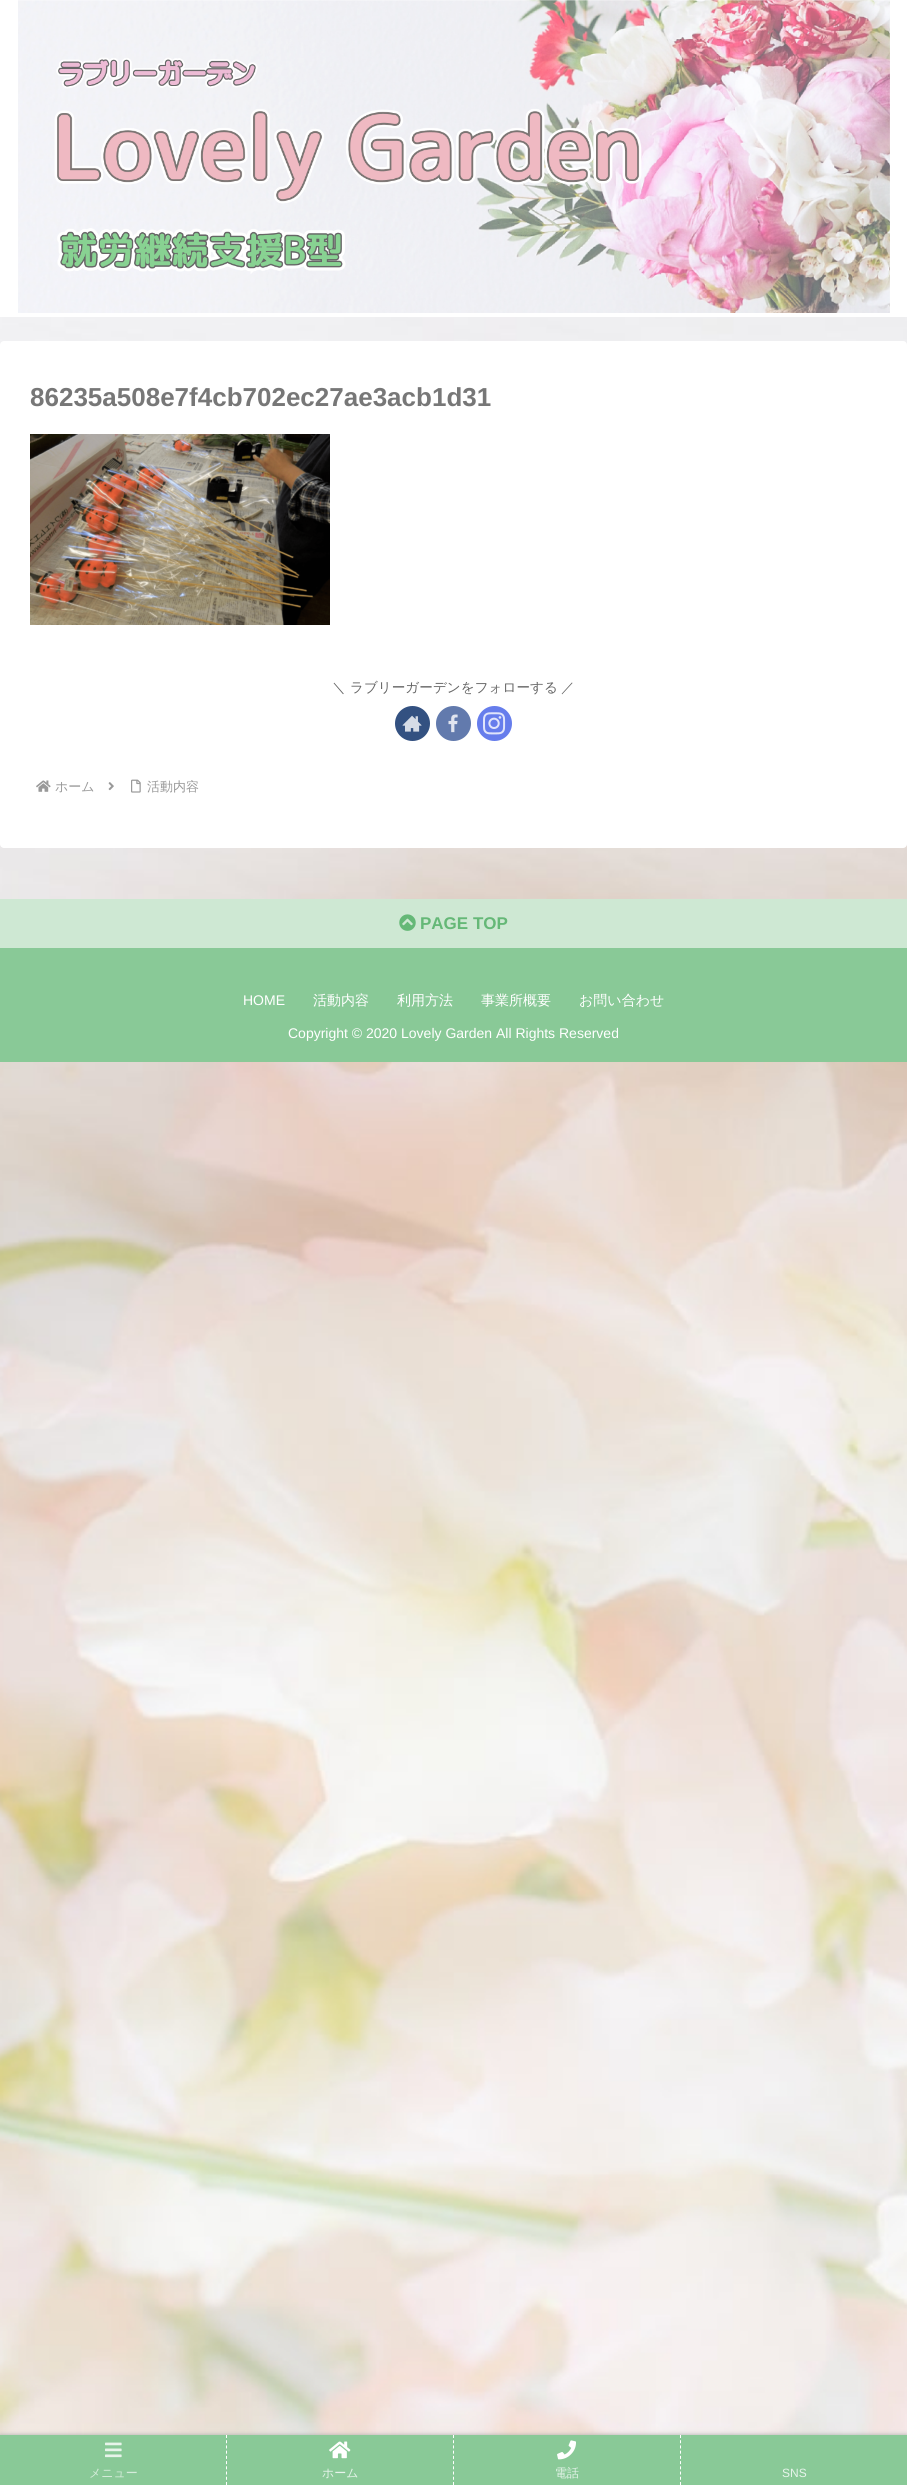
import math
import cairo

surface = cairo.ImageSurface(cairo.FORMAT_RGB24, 907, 2485)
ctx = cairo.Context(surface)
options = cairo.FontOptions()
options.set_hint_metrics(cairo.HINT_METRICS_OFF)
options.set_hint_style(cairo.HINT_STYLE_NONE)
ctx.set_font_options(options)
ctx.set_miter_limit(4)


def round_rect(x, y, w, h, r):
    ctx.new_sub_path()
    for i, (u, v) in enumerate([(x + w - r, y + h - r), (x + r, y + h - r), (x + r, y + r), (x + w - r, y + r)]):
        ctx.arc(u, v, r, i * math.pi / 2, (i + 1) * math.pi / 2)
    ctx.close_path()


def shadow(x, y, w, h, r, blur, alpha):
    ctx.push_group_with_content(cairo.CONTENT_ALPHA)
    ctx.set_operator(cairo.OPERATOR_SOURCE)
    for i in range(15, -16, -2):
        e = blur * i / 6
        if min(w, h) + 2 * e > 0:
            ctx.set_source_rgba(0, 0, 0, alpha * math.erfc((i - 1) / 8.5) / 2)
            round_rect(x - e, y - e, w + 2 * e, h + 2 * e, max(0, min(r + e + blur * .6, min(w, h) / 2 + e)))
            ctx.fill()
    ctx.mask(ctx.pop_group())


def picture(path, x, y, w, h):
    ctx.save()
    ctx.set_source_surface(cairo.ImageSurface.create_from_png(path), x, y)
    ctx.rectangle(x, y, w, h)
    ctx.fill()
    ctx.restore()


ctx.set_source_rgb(1, 1, 1)
ctx.paint()
picture("img1.png", 0, 317, 907, 2118)
picture("img2.png", 18, 0, 872, 313)
ctx.set_source_rgb(1, 1, 1)
round_rect(0, 341, 907, 507, 4)
ctx.fill()
ctx.select_font_face("Liberation Sans", cairo.FONT_SLANT_NORMAL, cairo.FONT_WEIGHT_BOLD)
ctx.set_font_size(26)
ctx.set_source_rgb(0.467, 0.467, 0.467)
ctx.move_to(30, 406)
ctx.show_text("86235a508e7f4cb702ec27ae3acb1d31")
picture("img3.png", 30, 434, 300, 191)
ctx.select_font_face("WenQuanYi Zen Hei Medium")
ctx.set_font_size(13.6)
ctx.set_source_rgb(0.4, 0.4, 0.4)
ctx.move_to(332, 692)
ctx.show_text("＼")
ctx.move_to(350, 692)
ctx.show_text("ラブリーガーデンをフォローする")
ctx.move_to(561, 692)
ctx.show_text("／")
ctx.set_source_rgb(0.2, 0.318, 0.506)
ctx.new_path()
ctx.arc(412.5, 723.5, 17.5, 0, 2 * math.pi)
ctx.fill()
picture("img4.png", 402, 715, 20, 17)
ctx.set_source_rgb(0.384, 0.478, 0.678)
ctx.arc(453.5, 723.5, 17.5, 0, 2 * math.pi)
ctx.fill()
picture("img5.png", 448, 714, 10, 19)
ctx.set_source_rgb(0.4, 0.49, 0.922)
ctx.arc(494.5, 723.5, 17.5, 0, 2 * math.pi)
ctx.fill()
picture("img6.png", 483, 712, 23, 23)
picture("img7.png", 36, 780, 15, 12)
ctx.set_font_size(13)
ctx.set_source_rgb(0.6, 0.6, 0.6)
ctx.move_to(55, 791)
ctx.show_text("ホーム")
picture("img8.png", 108, 782, 6, 9)
picture("img9.png", 131, 779, 10, 14)
ctx.move_to(147, 791)
ctx.show_text("活動内容")
ctx.set_source_rgb(0.808, 0.91, 0.827)
ctx.rectangle(0, 899, 907, 49)
ctx.fill()
picture("img10.png", 399, 914, 17, 17)
ctx.select_font_face("Liberation Sans", cairo.FONT_SLANT_NORMAL, cairo.FONT_WEIGHT_BOLD)
ctx.set_font_size(17)
ctx.set_source_rgb(0.396, 0.722, 0.467)
ctx.move_to(420, 929)
ctx.show_text("PAGE TOP")
ctx.set_source_rgb(0.537, 0.788, 0.592)
ctx.rectangle(0, 948, 907, 114)
ctx.fill()
ctx.select_font_face("Liberation Sans")
ctx.set_font_size(14)
ctx.set_source_rgb(1, 1, 1)
ctx.move_to(243, 1005)
ctx.show_text("HOME")
ctx.select_font_face("WenQuanYi Zen Hei Medium")
ctx.move_to(313, 1005)
ctx.show_text("活動内容")
ctx.move_to(397, 1005)
ctx.show_text("利用方法")
ctx.move_to(481, 1005)
ctx.show_text("事業所概要")
ctx.move_to(579, 1005)
ctx.show_text("お問い合わせ")
ctx.select_font_face("Liberation Sans")
ctx.move_to(288, 1038)
ctx.show_text("Copyright © 2020 Lovely Garden All Rights Reserved")
ctx.set_source_rgb(0.663, 0.663, 0.663)
shadow(0, 2435, 907, 50, 0, 2.5, 1)
ctx.set_source_rgb(0.537, 0.788, 0.592)
ctx.rectangle(0, 2435, 907, 50)
ctx.fill()
ctx.new_path()
ctx.move_to(226.5, 2435)
ctx.line_to(226.5, 2485)
ctx.set_source_rgb(1, 1, 1)
ctx.set_line_width(1)
ctx.set_dash([3, 2.22])
ctx.stroke()
picture("img11.png", 105, 2442, 17, 16)
ctx.select_font_face("WenQuanYi Zen Hei Medium")
ctx.set_font_size(12)
ctx.set_source_rgb(0.835, 0.925, 0.855)
ctx.move_to(89, 2477)
ctx.show_text("メニュー")
ctx.new_path()
ctx.move_to(453.5, 2435)
ctx.line_to(453.5, 2485)
ctx.set_source_rgb(1, 1, 1)
ctx.stroke()
picture("img12.png", 329, 2441, 22, 18)
ctx.set_source_rgb(0.906, 0.957, 0.918)
ctx.move_to(322, 2477)
ctx.show_text("ホーム")
ctx.new_path()
ctx.move_to(680.5, 2435)
ctx.line_to(680.5, 2485)
ctx.set_source_rgb(1, 1, 1)
ctx.stroke()
picture("img13.png", 557, 2440, 19, 20)
ctx.set_source_rgb(0.906, 0.957, 0.918)
ctx.move_to(555, 2477)
ctx.show_text("電話")
ctx.select_font_face("Liberation Sans")
ctx.move_to(782, 2477)
ctx.show_text("SNS")
surface.write_to_png("page.png")
